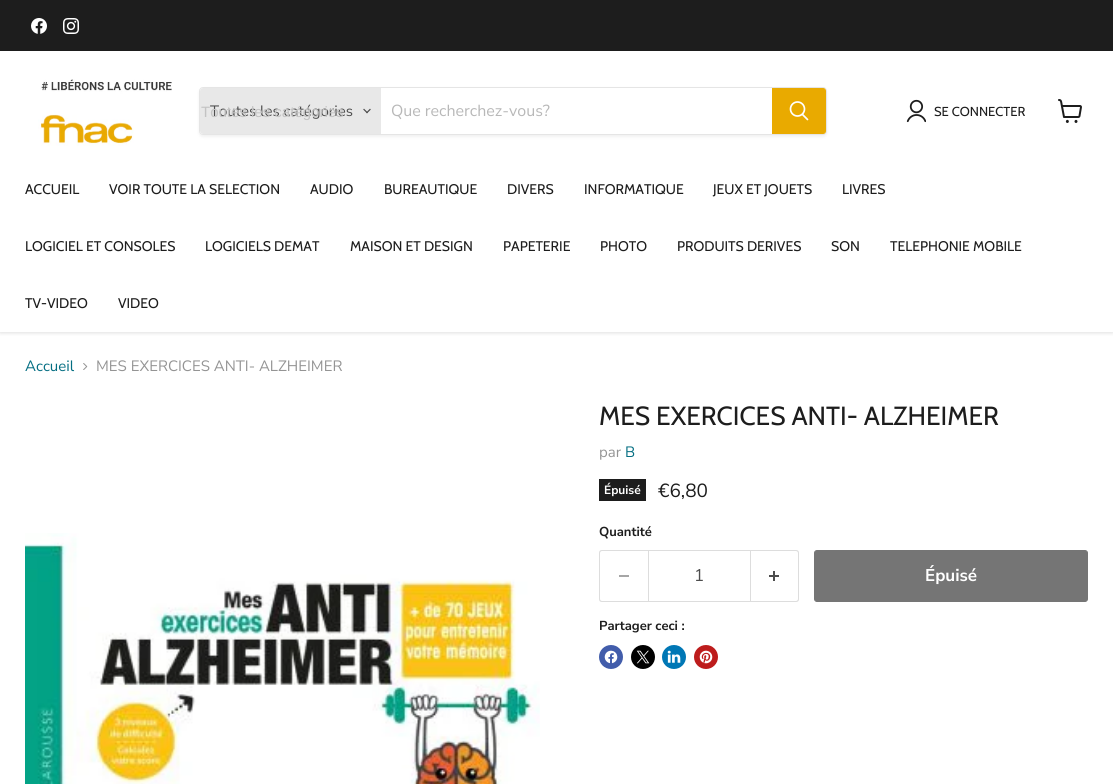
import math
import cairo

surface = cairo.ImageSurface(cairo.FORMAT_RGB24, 1113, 784)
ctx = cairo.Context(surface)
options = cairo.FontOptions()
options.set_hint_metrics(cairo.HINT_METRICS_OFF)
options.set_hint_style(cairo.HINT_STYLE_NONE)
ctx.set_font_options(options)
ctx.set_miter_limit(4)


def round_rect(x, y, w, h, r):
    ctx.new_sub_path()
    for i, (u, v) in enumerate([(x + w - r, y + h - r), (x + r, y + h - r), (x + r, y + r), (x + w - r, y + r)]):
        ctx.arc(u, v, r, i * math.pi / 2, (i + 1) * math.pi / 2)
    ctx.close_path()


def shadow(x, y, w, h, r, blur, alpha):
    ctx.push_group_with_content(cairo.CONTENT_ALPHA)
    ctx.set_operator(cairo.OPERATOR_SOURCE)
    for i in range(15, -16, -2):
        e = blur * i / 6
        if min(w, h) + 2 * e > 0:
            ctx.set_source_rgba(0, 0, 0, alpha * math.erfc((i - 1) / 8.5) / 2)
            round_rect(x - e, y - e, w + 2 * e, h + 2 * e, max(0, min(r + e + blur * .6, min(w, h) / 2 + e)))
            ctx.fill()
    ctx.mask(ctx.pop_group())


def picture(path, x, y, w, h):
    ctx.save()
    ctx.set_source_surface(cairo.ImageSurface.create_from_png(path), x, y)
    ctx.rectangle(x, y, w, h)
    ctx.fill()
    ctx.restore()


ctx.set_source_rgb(1, 1, 1)
ctx.paint()
ctx.save()
ctx.rectangle(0, 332, 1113, 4)
ctx.clip()
ctx.set_source_rgb(0.502, 0.502, 0.502)
shadow(0, 53, 1113, 280, 0, 2, 0.25)
ctx.restore()
ctx.set_source_rgb(0.114, 0.114, 0.114)
ctx.rectangle(0, 0, 1113, 51)
ctx.fill()
ctx.set_source_rgb(1, 1, 1)
ctx.rectangle(0, 51, 1113, 1)
ctx.fill()
picture("img1.png", 31, 18, 16, 16)
picture("img2.png", 63, 18, 16, 16)
picture("img3.png", 38, 79, 134, 67)
ctx.save()
ctx.set_fill_rule(cairo.FILL_RULE_EVEN_ODD)
ctx.new_path()
ctx.move_to(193, 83)
ctx.line_to(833, 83)
ctx.line_to(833, 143)
ctx.line_to(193, 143)
ctx.close_path()
ctx.move_to(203, 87)
ctx.line_to(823, 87)
ctx.curve_to(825, 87, 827, 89, 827, 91)
ctx.line_to(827, 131)
ctx.curve_to(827, 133, 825, 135, 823, 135)
ctx.line_to(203, 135)
ctx.curve_to(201, 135, 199, 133, 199, 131)
ctx.line_to(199, 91)
ctx.curve_to(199, 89, 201, 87, 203, 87)
ctx.close_path()
ctx.clip()
ctx.set_source_rgb(0.502, 0.502, 0.502)
shadow(199, 89, 628, 48, 4, 1.5, 0.11)
ctx.restore()
round_rect(199.5, 87.5, 627, 47, 3.5)
ctx.set_source_rgba(0.502, 0.502, 0.502, 0.2)
ctx.set_line_width(1)
ctx.stroke()
ctx.set_source_rgb(0.91, 0.91, 0.91)
ctx.new_path()
ctx.move_to(203, 88)
ctx.line_to(381, 88)
ctx.line_to(381, 134)
ctx.line_to(203, 134)
ctx.curve_to(201.5, 134, 200, 132.5, 200, 131)
ctx.line_to(200, 91)
ctx.curve_to(200, 89.5, 201.5, 88, 203, 88)
ctx.close_path()
ctx.fill()
ctx.select_font_face("Nunito Sans")
ctx.set_font_size(15)
ctx.set_source_rgb(0.302, 0.302, 0.302)
ctx.move_to(210, 116)
ctx.show_text("Toutes les catégories")
ctx.select_font_face("Liberation Sans")
ctx.set_source_rgb(0.765, 0.765, 0.765)
ctx.move_to(201, 117)
ctx.show_text("Toutes les catégories")
picture("img4.png", 363, 108, 8, 6)
ctx.select_font_face("Nunito Sans")
ctx.set_font_size(16)
ctx.set_source_rgb(0.722, 0.722, 0.722)
ctx.move_to(391, 116)
ctx.show_text("Que recherchez-vous?")
ctx.set_source_rgb(0.914, 0.667, 0)
ctx.new_path()
ctx.move_to(772.5, 88.5)
ctx.line_to(823, 88.5)
ctx.curve_to(824.5, 88.5, 825.5, 89.5, 825.5, 91)
ctx.line_to(825.5, 131)
ctx.curve_to(825.5, 132.5, 824.5, 133.5, 823, 133.5)
ctx.line_to(772.5, 133.5)
ctx.close_path()
ctx.fill_preserve()
ctx.stroke()
ctx.new_path()
ctx.move_to(807.5, 119.5)
ctx.line_to(802.5, 114.5)
ctx.set_source_rgb(1, 1, 1)
ctx.set_line_width(1.7)
ctx.set_line_cap(cairo.LINE_CAP_ROUND)
ctx.stroke()
ctx.arc(797.5, 109, 7, 0, 2 * math.pi)
ctx.set_line_cap(cairo.LINE_CAP_BUTT)
ctx.stroke()
picture("img5.png", 906, 99, 20, 24)
ctx.select_font_face("Cabin")
ctx.set_font_size(13)
ctx.set_source_rgb(0.114, 0.114, 0.114)
ctx.move_to(934, 116)
ctx.show_text("SE CONNECTER")
picture("img6.png", 1058, 99, 24, 24)
ctx.set_font_size(14)
ctx.move_to(25, 194)
ctx.show_text("ACCUEIL")
ctx.move_to(109, 194)
ctx.show_text("VOIR TOUTE LA SELECTION")
ctx.move_to(310, 194)
ctx.show_text("AUDIO")
ctx.move_to(384, 194)
ctx.show_text("BUREAUTIQUE")
ctx.move_to(507, 194)
ctx.show_text("DIVERS")
ctx.move_to(584, 194)
ctx.show_text("INFORMATIQUE")
ctx.move_to(713, 194)
ctx.show_text("JEUX ET JOUETS")
ctx.move_to(842, 194)
ctx.show_text("LIVRES")
ctx.move_to(25, 251)
ctx.show_text("LOGICIEL ET CONSOLES")
ctx.move_to(205, 251)
ctx.show_text("LOGICIELS DEMAT")
ctx.move_to(350, 251)
ctx.show_text("MAISON ET DESIGN")
ctx.move_to(503, 251)
ctx.show_text("PAPETERIE")
ctx.move_to(600, 251)
ctx.show_text("PHOTO")
ctx.move_to(677, 251)
ctx.show_text("PRODUITS DERIVES")
ctx.move_to(831, 251)
ctx.show_text("SON")
ctx.move_to(890, 251)
ctx.show_text("TELEPHONIE MOBILE")
ctx.move_to(25, 308)
ctx.show_text("TV-VIDEO")
ctx.move_to(118, 308)
ctx.show_text("VIDEO")
ctx.select_font_face("Nunito Sans")
ctx.set_font_size(15)
ctx.set_source_rgb(0.016, 0.431, 0.51)
ctx.move_to(25, 371)
ctx.show_text("Accueil")
picture("img7.png", 83, 363, 5, 7)
ctx.set_source_rgb(0.58, 0.58, 0.58)
ctx.move_to(96, 371)
ctx.show_text("MES EXERCICES ANTI- ALZHEIMER")
picture("img8.png", 25, 533, 515, 251)
ctx.select_font_face("Cabin")
ctx.set_font_size(26.25)
ctx.set_source_rgb(0.114, 0.114, 0.114)
ctx.move_to(599, 425)
ctx.show_text("MES EXERCICES ANTI- ALZHEIMER")
ctx.select_font_face("Nunito Sans")
ctx.set_font_size(15)
ctx.set_source_rgb(0.58, 0.58, 0.58)
ctx.move_to(599, 457)
ctx.show_text("par")
ctx.set_source_rgb(0.016, 0.431, 0.51)
ctx.move_to(625, 457)
ctx.show_text("B")
ctx.set_source_rgb(0.114, 0.114, 0.114)
ctx.rectangle(599, 479, 47, 22)
ctx.fill()
ctx.select_font_face("Nunito Sans", cairo.FONT_SLANT_NORMAL, cairo.FONT_WEIGHT_BOLD)
ctx.set_font_size(12)
ctx.set_source_rgb(1, 1, 1)
ctx.move_to(604, 494)
ctx.show_text("Épuisé")
ctx.select_font_face("Nunito Sans")
ctx.set_font_size(19)
ctx.set_source_rgb(0.114, 0.114, 0.114)
ctx.move_to(658, 497)
ctx.show_text("€6,80")
ctx.select_font_face("Nunito Sans", cairo.FONT_SLANT_NORMAL, cairo.FONT_WEIGHT_BOLD)
ctx.set_font_size(13)
ctx.move_to(599, 536)
ctx.show_text("Quantité")
ctx.set_source_rgb(0.867, 0.867, 0.867)
ctx.set_fill_rule(cairo.FILL_RULE_EVEN_ODD)
ctx.new_path()
ctx.move_to(602, 550)
ctx.line_to(648, 550)
ctx.line_to(648, 602)
ctx.line_to(602, 602)
ctx.curve_to(600, 602, 599, 601, 599, 599)
ctx.line_to(599, 553)
ctx.curve_to(599, 551, 600, 550, 602, 550)
ctx.close_path()
ctx.move_to(602, 551)
ctx.line_to(648, 551)
ctx.line_to(648, 601)
ctx.line_to(602, 601)
ctx.curve_to(601, 601, 600, 600, 600, 599)
ctx.line_to(600, 553)
ctx.curve_to(600, 552, 601, 551, 602, 551)
ctx.close_path()
ctx.fill()
ctx.set_source_rgb(0.651, 0.651, 0.651)
ctx.rectangle(619, 575, 10, 2)
ctx.fill()
ctx.rectangle(648.5, 550.5, 102, 51)
ctx.set_source_rgb(0.867, 0.867, 0.867)
ctx.set_line_width(1)
ctx.stroke()
ctx.select_font_face("Nunito Sans")
ctx.set_font_size(17)
ctx.set_source_rgb(0.302, 0.302, 0.302)
ctx.move_to(694, 581)
ctx.show_text("1")
ctx.set_source_rgb(0.867, 0.867, 0.867)
ctx.new_path()
ctx.move_to(751, 550)
ctx.line_to(796, 550)
ctx.curve_to(798, 550, 799, 551, 799, 553)
ctx.line_to(799, 599)
ctx.curve_to(799, 601, 798, 602, 796, 602)
ctx.line_to(751, 602)
ctx.close_path()
ctx.move_to(751, 551)
ctx.line_to(796, 551)
ctx.curve_to(797, 551, 798, 552, 798, 553)
ctx.line_to(798, 599)
ctx.curve_to(798, 600, 797, 601, 796, 601)
ctx.line_to(751, 601)
ctx.close_path()
ctx.fill()
picture("img9.png", 769, 571, 10, 10)
ctx.set_source_rgb(0.459, 0.459, 0.459)
round_rect(814.5, 550.5, 273, 51, 2.5)
ctx.fill_preserve()
ctx.stroke()
ctx.select_font_face("Nunito Sans", cairo.FONT_SLANT_NORMAL, cairo.FONT_WEIGHT_BOLD)
ctx.set_source_rgb(1, 1, 1)
ctx.move_to(925, 581)
ctx.show_text("Épuisé")
ctx.set_font_size(13)
ctx.set_source_rgb(0.114, 0.114, 0.114)
ctx.move_to(599, 630)
ctx.show_text("Partager ceci :")
ctx.set_source_rgb(0.259, 0.365, 0.671)
ctx.new_path()
ctx.arc(611, 657, 12, 0, 2 * math.pi)
ctx.fill()
picture("img10.png", 604, 650, 14, 14)
ctx.set_source_rgb(0, 0, 0)
ctx.arc(643, 657, 12, 0, 2 * math.pi)
ctx.fill()
picture("img11.png", 636, 650, 14, 14)
ctx.set_source_rgb(0, 0.467, 0.71)
ctx.arc(674, 657, 12, 0, 2 * math.pi)
ctx.fill()
picture("img12.png", 667, 650, 14, 13)
ctx.set_source_rgb(0.741, 0.11, 0.11)
ctx.arc(706, 657, 12, 0, 2 * math.pi)
ctx.fill()
picture("img13.png", 699, 650, 14, 14)
surface.write_to_png("page.png")
